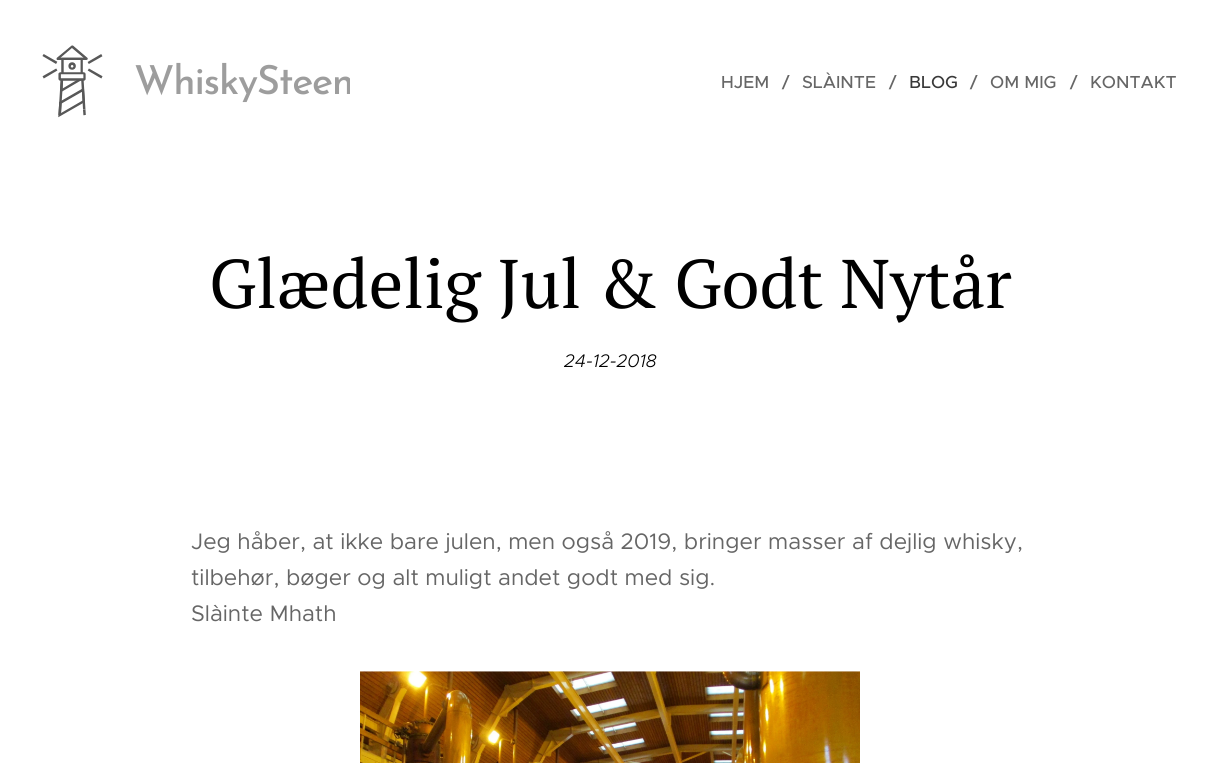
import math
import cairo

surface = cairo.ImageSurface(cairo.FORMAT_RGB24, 1219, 763)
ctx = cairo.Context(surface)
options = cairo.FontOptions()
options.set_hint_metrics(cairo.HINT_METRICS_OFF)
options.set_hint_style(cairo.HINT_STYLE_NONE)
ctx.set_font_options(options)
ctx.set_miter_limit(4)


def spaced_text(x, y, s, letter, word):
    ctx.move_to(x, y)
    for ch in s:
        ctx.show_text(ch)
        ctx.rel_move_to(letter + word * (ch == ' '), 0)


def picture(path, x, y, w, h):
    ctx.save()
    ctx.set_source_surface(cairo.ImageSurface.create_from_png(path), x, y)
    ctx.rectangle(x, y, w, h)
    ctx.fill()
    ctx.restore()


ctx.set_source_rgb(1, 1, 1)
ctx.paint()
picture("img1.png", 42, 45, 61, 73)
ctx.save()
ctx.rectangle(125, 51, 225, 60)
ctx.clip()
ctx.select_font_face("Josefin Sans Medium")
ctx.set_font_size(40)
ctx.set_source_rgb(0.616, 0.616, 0.616)
spaced_text(134, 94, "WhiskySteen", -1.25, 0)
ctx.restore()
ctx.select_font_face("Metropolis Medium")
ctx.set_font_size(17.5)
ctx.set_source_rgb(0.4, 0.4, 0.4)
ctx.move_to(721, 88)
ctx.show_text("HJEM")
ctx.move_to(782, 88)
ctx.show_text("/")
ctx.move_to(802, 88)
ctx.show_text("SLÀINTE")
ctx.move_to(889, 88)
ctx.show_text("/")
ctx.set_source_rgb(0.224, 0.224, 0.224)
ctx.move_to(909, 88)
ctx.show_text("BLOG")
ctx.set_source_rgb(0.4, 0.4, 0.4)
ctx.move_to(970, 88)
ctx.show_text("/")
ctx.move_to(990, 88)
ctx.show_text("OM MIG")
ctx.move_to(1070, 88)
ctx.show_text("/")
ctx.move_to(1090, 88)
ctx.show_text("KONTAKT")
ctx.select_font_face("PT Serif")
ctx.set_font_size(68.75)
ctx.set_source_rgb(0, 0, 0)
ctx.move_to(209, 308)
ctx.show_text("Glædelig Jul & Godt Nytår")
ctx.select_font_face("Metropolis Light", cairo.FONT_SLANT_ITALIC)
ctx.set_font_size(18.25)
ctx.move_to(564, 367)
ctx.show_text("24-12-2018")
ctx.select_font_face("Metropolis")
ctx.set_font_size(22.5)
ctx.set_source_rgb(0.4, 0.4, 0.4)
ctx.move_to(191, 549)
ctx.show_text("Jeg håber, at ikke bare julen, men også 2019, bringer masser af dejlig whisky,")
ctx.move_to(191, 585)
ctx.show_text("tilbehør, bøger og alt muligt andet godt med sig.")
ctx.move_to(191, 621)
ctx.show_text("Slàinte Mhath")
picture("img2.png", 360, 671, 500, 92)
surface.write_to_png("page.png")
